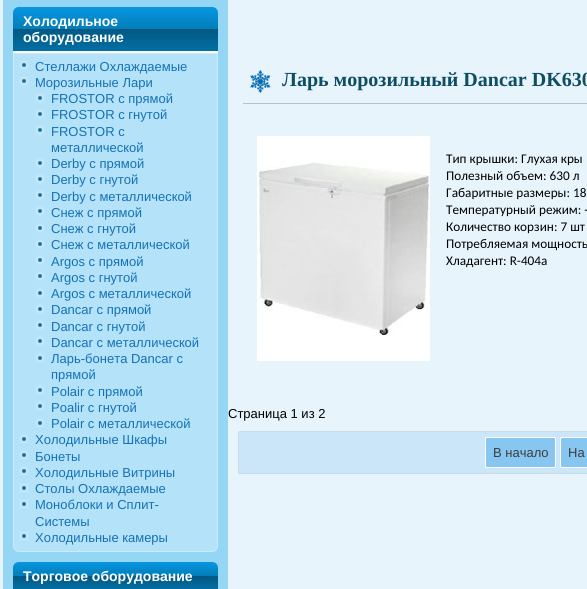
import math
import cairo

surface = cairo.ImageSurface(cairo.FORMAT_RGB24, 587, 589)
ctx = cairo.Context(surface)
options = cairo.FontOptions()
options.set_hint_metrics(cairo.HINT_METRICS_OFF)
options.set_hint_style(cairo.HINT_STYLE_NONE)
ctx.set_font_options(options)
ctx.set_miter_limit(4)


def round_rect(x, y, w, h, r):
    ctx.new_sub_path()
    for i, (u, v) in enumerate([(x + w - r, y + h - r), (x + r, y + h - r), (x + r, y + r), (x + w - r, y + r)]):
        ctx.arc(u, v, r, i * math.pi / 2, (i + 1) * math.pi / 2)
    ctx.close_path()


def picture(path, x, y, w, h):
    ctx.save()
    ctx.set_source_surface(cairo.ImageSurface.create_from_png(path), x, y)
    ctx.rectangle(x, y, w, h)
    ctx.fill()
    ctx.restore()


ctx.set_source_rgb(0.906, 0.957, 0.988)
ctx.paint()
ctx.set_source_rgb(0.58, 0.839, 0.957)
ctx.rectangle(3, 0, 225, 589)
ctx.fill()
gradient = cairo.LinearGradient(116, 7, 116, 51)
gradient.add_color_stop_rgba(0, 0.02, 0.592, 0.882, 1)
gradient.add_color_stop_rgba(0.5, 0.016, 0.49, 0.725, 1)
gradient.add_color_stop_rgba(0.5, 0.012, 0.345, 0.51, 1)
gradient.add_color_stop_rgba(1, 0.012, 0.435, 0.647, 1)
ctx.set_source(gradient)
ctx.new_path()
ctx.move_to(19, 7)
ctx.line_to(212, 7)
ctx.curve_to(215.5, 7, 218, 9.5, 218, 13)
ctx.line_to(218, 51)
ctx.line_to(13, 51)
ctx.line_to(13, 13)
ctx.curve_to(13, 9.5, 15.5, 7, 19, 7)
ctx.close_path()
ctx.fill()
ctx.set_source_rgb(1, 1, 1)
ctx.rectangle(13, 51, 205, 2)
ctx.fill()
ctx.select_font_face("Liberation Sans", cairo.FONT_SLANT_NORMAL, cairo.FONT_WEIGHT_BOLD)
ctx.set_font_size(14)
ctx.move_to(23, 26)
ctx.show_text("Холодильное")
ctx.move_to(23, 42)
ctx.show_text("оборудование")
ctx.set_source_rgb(0.706, 0.886, 0.969)
ctx.new_path()
ctx.move_to(13, 53)
ctx.line_to(218, 53)
ctx.line_to(218, 546)
ctx.curve_to(218, 549.5, 215.5, 552, 212, 552)
ctx.line_to(19, 552)
ctx.curve_to(15.5, 552, 13, 549.5, 13, 546)
ctx.close_path()
ctx.fill()
ctx.new_path()
ctx.move_to(13.5, 53.5)
ctx.line_to(217.5, 53.5)
ctx.line_to(217.5, 546)
ctx.curve_to(217.5, 549, 215, 551.5, 212, 551.5)
ctx.line_to(19, 551.5)
ctx.curve_to(16, 551.5, 13.5, 549, 13.5, 546)
ctx.close_path()
ctx.set_source_rgba(1, 1, 1, 0.3)
ctx.set_line_width(1)
ctx.stroke()
picture("img1.png", 19, 60, 10, 10)
ctx.select_font_face("Liberation Sans")
ctx.set_font_size(13)
ctx.set_source_rgb(0.082, 0.443, 0.718)
ctx.move_to(35, 71)
ctx.show_text("Стеллажи Охлаждаемые")
picture("img1.png", 19, 76, 10, 10)
ctx.move_to(35, 87)
ctx.show_text("Морозильные Лари")
picture("img1.png", 35, 93, 10, 10)
ctx.move_to(51, 103)
ctx.show_text("FROSTOR с прямой")
picture("img1.png", 35, 109, 10, 10)
ctx.move_to(51, 119)
ctx.show_text("FROSTOR c гнутой")
picture("img1.png", 35, 125, 10, 10)
ctx.move_to(51, 136)
ctx.show_text("FROSTOR с")
ctx.move_to(51, 152)
ctx.show_text("металлической")
picture("img1.png", 35, 158, 10, 10)
ctx.move_to(51, 168)
ctx.show_text("Derby с прямой")
picture("img1.png", 35, 174, 10, 10)
ctx.move_to(51, 184)
ctx.show_text("Derby c гнутой")
picture("img1.png", 35, 190, 10, 10)
ctx.move_to(51, 201)
ctx.show_text("Derby с металлической")
picture("img1.png", 35, 206, 10, 10)
ctx.move_to(51, 217)
ctx.show_text("Снеж с прямой")
picture("img1.png", 35, 223, 10, 10)
ctx.move_to(51, 233)
ctx.show_text("Снеж c гнутой")
picture("img1.png", 35, 239, 10, 10)
ctx.move_to(51, 249)
ctx.show_text("Снеж с металлической")
picture("img1.png", 35, 255, 10, 10)
ctx.move_to(51, 266)
ctx.show_text("Argos с прямой")
picture("img1.png", 35, 271, 10, 10)
ctx.move_to(51, 282)
ctx.show_text("Argos с гнутой")
picture("img1.png", 35, 288, 10, 10)
ctx.move_to(51, 298)
ctx.show_text("Argos с металлической")
picture("img1.png", 35, 304, 10, 10)
ctx.move_to(51, 314)
ctx.show_text("Dancar с прямой")
picture("img1.png", 35, 320, 10, 10)
ctx.move_to(51, 331)
ctx.show_text("Dancar с гнутой")
picture("img1.png", 35, 336, 10, 10)
ctx.move_to(51, 347)
ctx.show_text("Dancar с металлической")
picture("img1.png", 35, 353, 10, 10)
ctx.move_to(51, 363)
ctx.show_text("Ларь-бонета Dancar с")
ctx.move_to(51, 379)
ctx.show_text("прямой")
picture("img1.png", 35, 385, 10, 10)
ctx.move_to(51, 396)
ctx.show_text("Polair с прямой")
picture("img1.png", 35, 401, 10, 10)
ctx.move_to(51, 412)
ctx.show_text("Poalir с гнутой")
picture("img1.png", 35, 418, 10, 10)
ctx.move_to(51, 428)
ctx.show_text("Polair c металлической")
picture("img1.png", 19, 434, 10, 10)
ctx.move_to(35, 444)
ctx.show_text("Холодильные Шкафы")
picture("img1.png", 19, 450, 10, 10)
ctx.move_to(35, 461)
ctx.show_text("Бонеты")
picture("img1.png", 19, 466, 10, 10)
ctx.move_to(35, 477)
ctx.show_text("Холодильные Витрины")
picture("img1.png", 19, 483, 10, 10)
ctx.move_to(35, 493)
ctx.show_text("Столы Охлаждаемые")
picture("img1.png", 19, 499, 10, 10)
ctx.move_to(35, 509)
ctx.show_text("Моноблоки и Сплит-")
ctx.move_to(35, 526)
ctx.show_text("Системы")
picture("img1.png", 19, 531, 10, 10)
ctx.move_to(35, 542)
ctx.show_text("Холодильные камеры")
gradient = cairo.LinearGradient(116, 562, 116, 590)
gradient.add_color_stop_rgba(0, 0.02, 0.592, 0.882, 1)
gradient.add_color_stop_rgba(0.5, 0.016, 0.49, 0.725, 1)
gradient.add_color_stop_rgba(0.5, 0.012, 0.345, 0.51, 1)
gradient.add_color_stop_rgba(1, 0.012, 0.435, 0.647, 1)
ctx.set_source(gradient)
ctx.new_path()
ctx.move_to(19, 562)
ctx.line_to(212, 562)
ctx.curve_to(215.5, 562, 218, 564.5, 218, 568)
ctx.line_to(218, 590)
ctx.line_to(13, 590)
ctx.line_to(13, 568)
ctx.curve_to(13, 564.5, 15.5, 562, 19, 562)
ctx.close_path()
ctx.fill()
ctx.select_font_face("Liberation Sans", cairo.FONT_SLANT_NORMAL, cairo.FONT_WEIGHT_BOLD)
ctx.set_font_size(14)
ctx.set_source_rgb(1, 1, 1)
ctx.move_to(23, 581)
ctx.show_text("Торговое оборудование")
ctx.set_source_rgb(0.749, 0.749, 0.749)
ctx.rectangle(243, 103, 344, 1)
ctx.fill()
picture("img2.png", 250, 70, 21, 23)
ctx.select_font_face("Liberation Serif", cairo.FONT_SLANT_NORMAL, cairo.FONT_WEIGHT_BOLD)
ctx.set_font_size(20)
ctx.set_source_rgb(0.055, 0.302, 0.384)
ctx.move_to(282, 86)
ctx.show_text("Ларь морозильный Dancar DK630")
picture("img3.png", 257, 136, 173, 225)
ctx.select_font_face("Carlito")
ctx.set_font_size(13.25)
ctx.set_source_rgb(0, 0, 0)
ctx.move_to(446, 163)
ctx.show_text("Тип крышки: Глухая кры")
ctx.move_to(446, 180)
ctx.show_text("Полезный объем: 630 л")
ctx.move_to(446, 197)
ctx.show_text("Габаритные размеры: 18")
ctx.move_to(446, 214)
ctx.show_text("Температурный режим: -")
ctx.move_to(446, 231)
ctx.show_text("Количество корзин: 7 шт")
ctx.move_to(446, 248)
ctx.show_text("Потребляемая мощность")
ctx.move_to(446, 265)
ctx.show_text("Хладагент: R-404a")
ctx.select_font_face("Liberation Sans")
ctx.set_font_size(13)
ctx.move_to(228, 418)
ctx.show_text("Страница 1 из 2")
ctx.set_source_rgb(0.796, 0.902, 0.976)
round_rect(238, 431, 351, 43, 2)
ctx.fill()
round_rect(238.5, 431.5, 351, 42, 1.5)
ctx.set_source_rgba(0.749, 0.749, 0.749, 0.3)
ctx.stroke()
ctx.set_source_rgb(0.533, 0.776, 0.949)
round_rect(485.5, 437.5, 70, 30, 1.5)
ctx.fill_preserve()
ctx.set_source_rgb(1, 1, 1)
ctx.stroke()
ctx.set_source_rgb(0.239, 0.239, 0.239)
ctx.move_to(493, 457)
ctx.show_text("В начало")
ctx.set_source_rgb(0.533, 0.776, 0.949)
round_rect(560.5, 437.5, 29, 30, 1.5)
ctx.fill_preserve()
ctx.set_source_rgb(1, 1, 1)
ctx.stroke()
ctx.set_source_rgb(0.239, 0.239, 0.239)
ctx.move_to(568, 457)
ctx.show_text("На")
surface.write_to_png("page.png")
